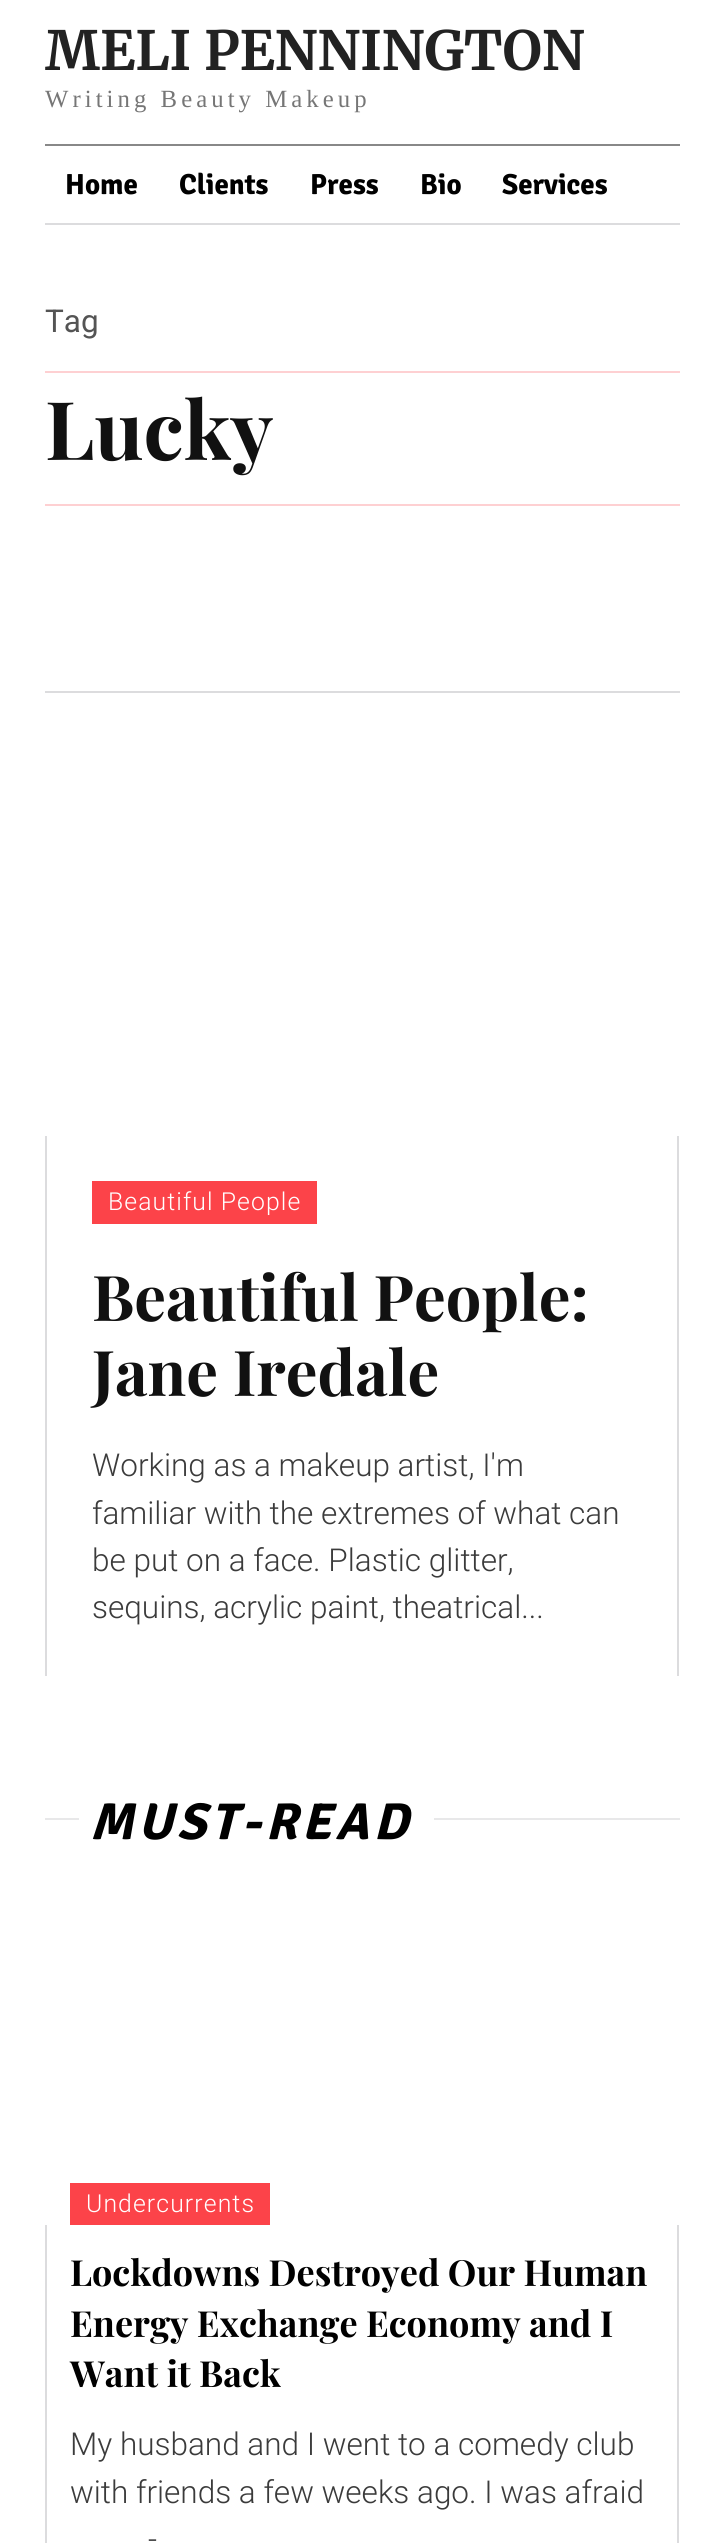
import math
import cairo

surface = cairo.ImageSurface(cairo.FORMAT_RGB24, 724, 2543)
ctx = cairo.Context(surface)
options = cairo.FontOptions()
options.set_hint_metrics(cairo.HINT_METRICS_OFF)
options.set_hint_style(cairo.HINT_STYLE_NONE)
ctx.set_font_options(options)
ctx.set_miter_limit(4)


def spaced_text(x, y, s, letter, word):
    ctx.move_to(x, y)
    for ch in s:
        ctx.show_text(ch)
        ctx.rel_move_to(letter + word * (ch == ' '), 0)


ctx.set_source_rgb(1, 1, 1)
ctx.paint()
ctx.select_font_face("Merriweather", cairo.FONT_SLANT_NORMAL, cairo.FONT_WEIGHT_BOLD)
ctx.set_font_size(54)
ctx.set_source_rgb(0.133, 0.133, 0.133)
ctx.move_to(45, 70)
ctx.show_text("MELI PENNINGTON")
ctx.select_font_face("Liberation Serif")
ctx.set_font_size(24.75)
ctx.set_source_rgb(0.463, 0.463, 0.463)
spaced_text(45, 107, "Writing Beauty Makeup", 4.05, 0)
ctx.set_source_rgb(0.533, 0.533, 0.533)
ctx.rectangle(45, 144, 635, 2)
ctx.fill()
ctx.set_source_rgb(0.863, 0.863, 0.871)
ctx.rectangle(45, 223, 635, 2)
ctx.fill()
ctx.select_font_face("Signika", cairo.FONT_SLANT_NORMAL, cairo.FONT_WEIGHT_BOLD)
ctx.set_font_size(29)
ctx.set_source_rgb(0, 0, 0)
ctx.move_to(65, 194)
ctx.show_text("Home")
ctx.move_to(179, 194)
ctx.show_text("Clients")
ctx.move_to(310, 194)
ctx.show_text("Press")
ctx.move_to(420, 194)
ctx.show_text("Bio")
ctx.move_to(502, 194)
ctx.show_text("Services")
ctx.set_source_rgb(0.996, 0.816, 0.824)
ctx.rectangle(45, 504, 635, 2)
ctx.fill()
ctx.rectangle(45, 371, 635, 2)
ctx.fill()
ctx.select_font_face("Roboto")
ctx.set_font_size(31.5)
ctx.set_source_rgb(0.329, 0.329, 0.329)
ctx.move_to(45, 332)
ctx.show_text("Tag")
ctx.select_font_face("Playfair Display", cairo.FONT_SLANT_NORMAL, cairo.FONT_WEIGHT_BOLD)
ctx.set_font_size(81)
ctx.set_source_rgb(0.067, 0.067, 0.067)
ctx.move_to(45, 460)
ctx.show_text("Lucky")
ctx.set_source_rgb(0.863, 0.863, 0.871)
ctx.rectangle(45, 691, 635, 2)
ctx.fill()
ctx.rectangle(677, 1136, 2, 540)
ctx.fill()
ctx.rectangle(45, 1136, 2, 540)
ctx.fill()
ctx.set_source_rgb(0.988, 0.263, 0.286)
ctx.rectangle(92, 1181, 225, 43)
ctx.fill()
ctx.select_font_face("Roboto Light")
ctx.set_font_size(24.75)
ctx.set_source_rgb(1, 1, 1)
spaced_text(108, 1210, "Beautiful People", 1.1, 0)
ctx.select_font_face("Playfair Display", cairo.FONT_SLANT_NORMAL, cairo.FONT_WEIGHT_BOLD)
ctx.set_font_size(63)
ctx.set_source_rgb(0.067, 0.067, 0.067)
ctx.move_to(92, 1321)
ctx.show_text("Beautiful People:")
ctx.move_to(92, 1396)
ctx.show_text("Jane Iredale")
ctx.select_font_face("Roboto Light")
ctx.set_font_size(31.5)
ctx.set_source_rgb(0.231, 0.231, 0.231)
ctx.move_to(92, 1476)
ctx.show_text("Working as a makeup artist, I'm")
ctx.move_to(92, 1524)
ctx.show_text("familiar with the extremes of what can")
ctx.move_to(92, 1571)
ctx.show_text("be put on a face. Plastic glitter,")
ctx.move_to(92, 1618)
ctx.show_text("sequins, acrylic paint, theatrical...")
ctx.set_source_rgb(0.91, 0.91, 0.914)
ctx.rectangle(45, 1818, 34, 2)
ctx.fill()
ctx.select_font_face("Signika", cairo.FONT_SLANT_ITALIC, cairo.FONT_WEIGHT_BOLD)
ctx.set_font_size(51.75)
ctx.set_source_rgb(0, 0, 0)
spaced_text(90, 1839, "MUST-READ", 4.5, 0)
ctx.set_source_rgb(0.91, 0.91, 0.914)
ctx.rectangle(434, 1818, 246, 2)
ctx.fill()
ctx.set_source_rgb(0.988, 0.263, 0.286)
ctx.rectangle(70, 2183, 200, 42)
ctx.fill()
ctx.select_font_face("Roboto Light")
ctx.set_font_size(24.75)
ctx.set_source_rgb(1, 1, 1)
spaced_text(86, 2212, "Undercurrents", 1.1, 0)
ctx.set_source_rgb(0.863, 0.863, 0.871)
ctx.rectangle(677, 2225, 2, 318)
ctx.fill()
ctx.rectangle(45, 2225, 2, 318)
ctx.fill()
ctx.select_font_face("Playfair Display", cairo.FONT_SLANT_NORMAL, cairo.FONT_WEIGHT_BOLD)
ctx.set_font_size(36)
ctx.set_source_rgb(0, 0, 0)
ctx.move_to(70, 2286)
ctx.show_text("Lockdowns Destroyed Our Human")
ctx.move_to(70, 2337)
ctx.show_text("Energy Exchange Economy and I")
ctx.move_to(70, 2387)
ctx.show_text("Want it Back")
ctx.select_font_face("Roboto Light")
ctx.set_font_size(31.5)
ctx.set_source_rgb(0.231, 0.231, 0.231)
ctx.move_to(70, 2455)
ctx.show_text("My husband and I went to a comedy club")
ctx.move_to(70, 2503)
ctx.show_text("with friends a few weeks ago. I was afraid")
ctx.move_to(148, 2550)
ctx.show_text("-")
surface.write_to_png("page.png")
